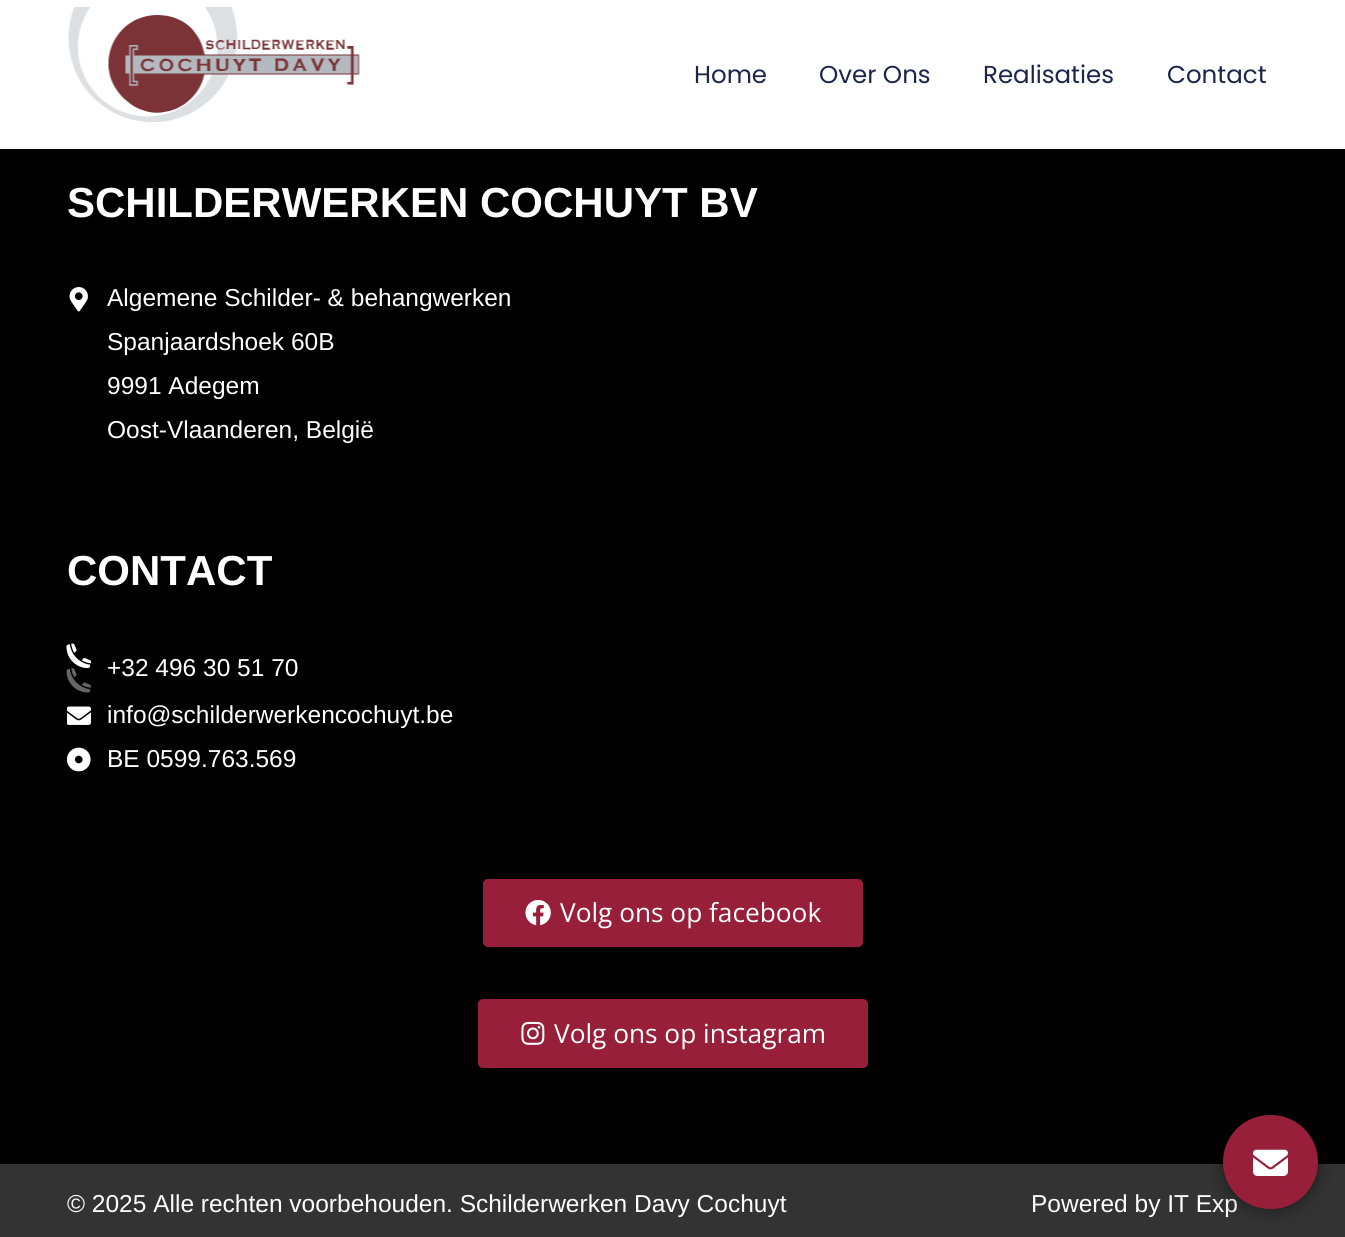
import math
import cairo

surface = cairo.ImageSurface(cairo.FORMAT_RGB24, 1345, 1237)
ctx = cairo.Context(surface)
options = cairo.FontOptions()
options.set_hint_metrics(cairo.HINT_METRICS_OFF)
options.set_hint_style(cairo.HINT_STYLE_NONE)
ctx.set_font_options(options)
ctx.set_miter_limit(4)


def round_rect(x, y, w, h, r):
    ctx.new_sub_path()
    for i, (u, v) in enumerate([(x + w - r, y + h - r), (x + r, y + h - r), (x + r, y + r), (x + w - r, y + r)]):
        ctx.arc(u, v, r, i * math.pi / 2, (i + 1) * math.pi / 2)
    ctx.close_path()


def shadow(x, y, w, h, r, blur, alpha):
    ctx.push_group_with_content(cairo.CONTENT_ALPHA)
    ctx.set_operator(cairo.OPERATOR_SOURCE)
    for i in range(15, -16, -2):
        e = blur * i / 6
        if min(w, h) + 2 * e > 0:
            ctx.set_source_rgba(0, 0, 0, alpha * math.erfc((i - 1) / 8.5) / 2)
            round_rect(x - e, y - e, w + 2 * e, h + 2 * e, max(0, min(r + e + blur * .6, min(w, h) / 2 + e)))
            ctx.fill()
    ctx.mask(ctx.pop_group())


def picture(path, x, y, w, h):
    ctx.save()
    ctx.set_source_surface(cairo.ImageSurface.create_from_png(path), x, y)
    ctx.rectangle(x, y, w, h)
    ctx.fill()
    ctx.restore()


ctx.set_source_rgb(0, 0, 0)
ctx.paint()
ctx.set_source_rgb(1, 1, 1)
ctx.rectangle(0, 0, 1345, 149)
ctx.fill()
picture("img1.png", 68, 7, 292, 115)
ctx.select_font_face("Poppins")
ctx.set_font_size(24.5)
ctx.set_source_rgb(0.11, 0.141, 0.294)
ctx.move_to(694, 83)
ctx.show_text("Home")
ctx.move_to(819, 83)
ctx.show_text("Over Ons")
ctx.move_to(983, 83)
ctx.show_text("Realisaties")
ctx.move_to(1167, 83)
ctx.show_text("Contact")
ctx.select_font_face("Liberation Sans", cairo.FONT_SLANT_NORMAL, cairo.FONT_WEIGHT_BOLD)
ctx.set_font_size(42)
ctx.set_source_rgb(1, 1, 1)
ctx.move_to(67, 217)
ctx.show_text("SCHILDERWERKEN COCHUYT BV")
picture("img2.png", 69, 287, 19, 25)
ctx.select_font_face("Liberation Sans")
ctx.set_font_size(24.5)
ctx.move_to(107, 306)
ctx.show_text("Algemene Schilder- & behangwerken")
ctx.move_to(107, 350)
ctx.show_text("Spanjaardshoek 60B")
ctx.move_to(107, 394)
ctx.show_text("9991 Adegem")
ctx.move_to(107, 438)
ctx.show_text("Oost-Vlaanderen, België")
ctx.select_font_face("Liberation Sans", cairo.FONT_SLANT_NORMAL, cairo.FONT_WEIGHT_BOLD)
ctx.set_font_size(42)
ctx.move_to(67, 585)
ctx.show_text("CONTACT")
picture("img3.png", 66, 643, 25, 26)
picture("img4.png", 66, 643, 25, 25)
picture("img5.png", 66, 668, 25, 25)
ctx.select_font_face("Liberation Sans")
ctx.set_font_size(24.5)
ctx.move_to(107, 676)
ctx.show_text("+32 496 30 51 70")
picture("img6.png", 67, 706, 24, 19)
ctx.move_to(107, 723)
ctx.show_text("info@schilderwerkencochuyt.be")
picture("img7.png", 67, 747, 24, 25)
ctx.move_to(107, 767)
ctx.show_text("BE 0599.763.569")
ctx.set_source_rgb(0.592, 0.122, 0.224)
round_rect(483, 879, 380, 68, 5)
ctx.fill()
picture("img8.png", 525, 900, 26, 26)
ctx.select_font_face("Open Sans")
ctx.set_font_size(26.25)
ctx.set_source_rgb(1, 1, 1)
ctx.move_to(560, 922)
ctx.show_text("Volg ons op facebook")
ctx.set_source_rgb(0.592, 0.122, 0.224)
round_rect(478, 999, 390, 69, 5)
ctx.fill()
picture("img9.png", 521, 1021, 24, 24)
ctx.set_source_rgb(1, 1, 1)
ctx.move_to(554, 1043)
ctx.show_text("Volg ons op instagram")
ctx.set_source_rgb(0.2, 0.2, 0.2)
ctx.rectangle(0, 1164, 1345, 73)
ctx.fill()
ctx.select_font_face("Liberation Sans")
ctx.set_font_size(24.5)
ctx.set_source_rgb(1, 1, 1)
ctx.move_to(67, 1212)
ctx.show_text("© 2025 Alle rechten voorbehouden. Schilderwerken Davy Cochuyt")
ctx.move_to(1031, 1212)
ctx.show_text("Powered by IT Exp")
ctx.set_source_rgb(0, 0, 0)
shadow(1223, 1115, 95, 94, 47, 9, 0.5)
ctx.set_source_rgb(0.592, 0.122, 0.224)
round_rect(1225, 1117, 91, 90, 45)
ctx.fill_preserve()
ctx.set_line_width(4)
ctx.stroke()
picture("img10.png", 1253, 1149, 35, 27)
surface.write_to_png("page.png")
